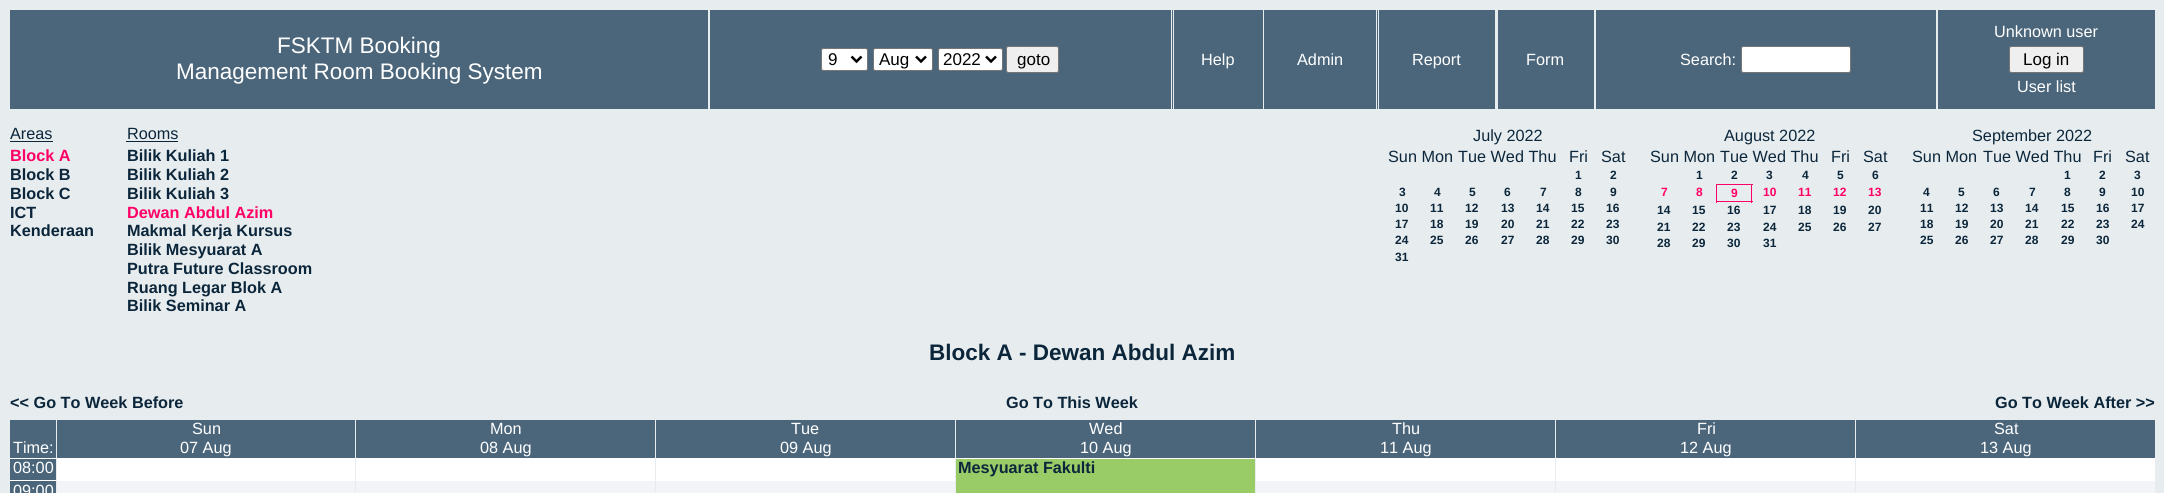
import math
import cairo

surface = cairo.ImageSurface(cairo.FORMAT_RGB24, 2164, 493)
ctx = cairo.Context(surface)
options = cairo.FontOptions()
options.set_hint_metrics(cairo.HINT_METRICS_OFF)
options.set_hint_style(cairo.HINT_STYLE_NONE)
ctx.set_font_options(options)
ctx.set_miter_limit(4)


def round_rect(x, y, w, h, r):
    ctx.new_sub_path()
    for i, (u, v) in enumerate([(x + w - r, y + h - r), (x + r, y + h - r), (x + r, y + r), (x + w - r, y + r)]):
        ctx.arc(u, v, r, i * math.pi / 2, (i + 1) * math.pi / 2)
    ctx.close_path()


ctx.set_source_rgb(0.906, 0.922, 0.933)
ctx.paint()
ctx.set_source_rgb(0.294, 0.4, 0.482)
ctx.rectangle(10, 10, 698, 99)
ctx.fill()
ctx.select_font_face("Liberation Sans")
ctx.set_font_size(22.5)
ctx.set_source_rgb(1, 1, 1)
ctx.move_to(277, 53)
ctx.show_text("FSKTM Booking")
ctx.move_to(176, 79)
ctx.show_text("Management Room Booking System")
ctx.set_source_rgb(0.294, 0.4, 0.482)
ctx.rectangle(710, 10, 463, 99)
ctx.fill()
ctx.set_source_rgb(1, 1, 1)
round_rect(821.5, 48.5, 46, 22, 2)
ctx.fill_preserve()
ctx.set_source_rgb(0.463, 0.463, 0.463)
ctx.set_line_width(1)
ctx.stroke()
ctx.new_path()
ctx.move_to(851.5, 56.5)
ctx.line_to(856.5, 61.5)
ctx.line_to(861.5, 56.5)
ctx.set_source_rgb(0, 0, 0)
ctx.set_line_width(2.5)
ctx.stroke()
ctx.set_font_size(17)
ctx.move_to(828, 65)
ctx.show_text("9")
ctx.set_source_rgb(1, 1, 1)
round_rect(873.5, 48.5, 59, 22, 2)
ctx.fill_preserve()
ctx.set_source_rgb(0.463, 0.463, 0.463)
ctx.set_line_width(1)
ctx.stroke()
ctx.new_path()
ctx.move_to(916, 56.5)
ctx.line_to(921, 61.5)
ctx.line_to(926, 56.5)
ctx.set_source_rgb(0, 0, 0)
ctx.set_line_width(2.5)
ctx.stroke()
ctx.move_to(879, 65)
ctx.show_text("Aug")
ctx.set_source_rgb(1, 1, 1)
round_rect(938.5, 48.5, 64, 22, 2)
ctx.fill_preserve()
ctx.set_source_rgb(0.463, 0.463, 0.463)
ctx.set_line_width(1)
ctx.stroke()
ctx.new_path()
ctx.move_to(986, 56.5)
ctx.line_to(991, 61.5)
ctx.line_to(996, 56.5)
ctx.set_source_rgb(0, 0, 0)
ctx.set_line_width(2.5)
ctx.stroke()
ctx.move_to(943, 65)
ctx.show_text("2022")
ctx.set_source_rgb(0.937, 0.937, 0.937)
round_rect(1006.5, 46.5, 52, 26, 2)
ctx.fill_preserve()
ctx.set_source_rgb(0.463, 0.463, 0.463)
ctx.set_line_width(1)
ctx.stroke()
ctx.set_source_rgb(0, 0, 0)
ctx.move_to(1017, 65)
ctx.show_text("goto")
ctx.set_source_rgb(0.294, 0.4, 0.482)
ctx.rectangle(1174, 10, 89, 99)
ctx.fill()
ctx.set_source_rgb(0.906, 0.922, 0.933)
ctx.rectangle(1171, 10, 1, 99)
ctx.fill()
ctx.set_font_size(16.25)
ctx.set_source_rgb(1, 1, 1)
ctx.move_to(1201, 65)
ctx.show_text("Help")
ctx.set_source_rgb(0.294, 0.4, 0.482)
ctx.rectangle(1264, 10, 114, 99)
ctx.fill()
ctx.set_source_rgb(1, 1, 1)
ctx.move_to(1297, 65)
ctx.show_text("Admin")
ctx.set_source_rgb(0.294, 0.4, 0.482)
ctx.rectangle(1379, 10, 116, 99)
ctx.fill()
ctx.set_source_rgb(0.906, 0.922, 0.933)
ctx.rectangle(1376, 10, 1, 99)
ctx.fill()
ctx.set_source_rgb(1, 1, 1)
ctx.move_to(1412, 65)
ctx.show_text("Report")
ctx.set_source_rgb(0.294, 0.4, 0.482)
ctx.rectangle(1498, 10, 96, 99)
ctx.fill()
ctx.set_source_rgb(1, 1, 1)
ctx.move_to(1526, 65)
ctx.show_text("Form")
ctx.set_source_rgb(0.294, 0.4, 0.482)
ctx.rectangle(1596, 10, 340, 99)
ctx.fill()
ctx.set_source_rgb(1, 1, 1)
ctx.move_to(1680, 65)
ctx.show_text("Search:")
round_rect(1741.5, 46.5, 109, 26, 2)
ctx.fill_preserve()
ctx.set_source_rgb(0.463, 0.463, 0.463)
ctx.stroke()
ctx.set_source_rgb(0.294, 0.4, 0.482)
ctx.rectangle(1938, 10, 217, 99)
ctx.fill()
ctx.set_source_rgb(1, 1, 1)
ctx.move_to(1994, 37)
ctx.show_text("Unknown user")
ctx.set_source_rgb(0.937, 0.937, 0.937)
round_rect(2009.5, 46.5, 74, 26, 2)
ctx.fill_preserve()
ctx.set_source_rgb(0.463, 0.463, 0.463)
ctx.stroke()
ctx.set_font_size(17)
ctx.set_source_rgb(0, 0, 0)
ctx.move_to(2023, 65)
ctx.show_text("Log in")
ctx.set_font_size(16.25)
ctx.set_source_rgb(1, 1, 1)
ctx.move_to(2017, 92)
ctx.show_text("User list")
ctx.set_source_rgb(0.043, 0.149, 0.231)
ctx.move_to(10, 139)
ctx.show_text("Areas")
ctx.rectangle(10, 141, 43, 1)
ctx.fill()
ctx.select_font_face("Liberation Sans", cairo.FONT_SLANT_NORMAL, cairo.FONT_WEIGHT_BOLD)
ctx.set_source_rgb(1, 0, 0.4)
ctx.move_to(10, 161)
ctx.show_text("Block A")
ctx.set_source_rgb(0.043, 0.149, 0.231)
ctx.move_to(10, 180)
ctx.show_text("Block B")
ctx.move_to(10, 199)
ctx.show_text("Block C")
ctx.move_to(10, 218)
ctx.show_text("ICT")
ctx.move_to(10, 236)
ctx.show_text("Kenderaan")
ctx.select_font_face("Liberation Sans")
ctx.move_to(127, 139)
ctx.show_text("Rooms")
ctx.rectangle(126, 141, 52, 1)
ctx.fill()
ctx.select_font_face("Liberation Sans", cairo.FONT_SLANT_NORMAL, cairo.FONT_WEIGHT_BOLD)
ctx.move_to(127, 161)
ctx.show_text("Bilik Kuliah 1")
ctx.move_to(127, 180)
ctx.show_text("Bilik Kuliah 2")
ctx.move_to(127, 199)
ctx.show_text("Bilik Kuliah 3")
ctx.set_source_rgb(1, 0, 0.4)
ctx.move_to(127, 218)
ctx.show_text("Dewan Abdul Azim")
ctx.set_source_rgb(0.043, 0.149, 0.231)
ctx.move_to(127, 236)
ctx.show_text("Makmal Kerja Kursus")
ctx.move_to(127, 255)
ctx.show_text("Bilik Mesyuarat A")
ctx.move_to(127, 274)
ctx.show_text("Putra Future Classroom")
ctx.move_to(127, 293)
ctx.show_text("Ruang Legar Blok A")
ctx.move_to(127, 311)
ctx.show_text("Bilik Seminar A")
ctx.select_font_face("Liberation Sans")
ctx.move_to(1473, 141)
ctx.show_text("July 2022")
ctx.move_to(1388, 162)
ctx.show_text("Sun Mon")
ctx.move_to(1458, 162)
ctx.show_text("Tue Wed Thu")
ctx.move_to(1569, 162)
ctx.show_text("Fri")
ctx.move_to(1601, 162)
ctx.show_text("Sat")
ctx.select_font_face("Liberation Sans", cairo.FONT_SLANT_NORMAL, cairo.FONT_WEIGHT_BOLD)
ctx.set_font_size(12)
ctx.move_to(1575, 179)
ctx.show_text("1")
ctx.move_to(1610, 179)
ctx.show_text("2")
ctx.move_to(1399, 196)
ctx.show_text("3")
ctx.move_to(1434, 196)
ctx.show_text("4")
ctx.move_to(1469, 196)
ctx.show_text("5")
ctx.move_to(1504, 196)
ctx.show_text("6")
ctx.move_to(1540, 196)
ctx.show_text("7")
ctx.move_to(1575, 196)
ctx.show_text("8")
ctx.move_to(1610, 196)
ctx.show_text("9")
ctx.move_to(1395, 212)
ctx.show_text("10")
ctx.move_to(1430, 212)
ctx.show_text("11")
ctx.move_to(1465, 212)
ctx.show_text("12")
ctx.move_to(1501, 212)
ctx.show_text("13")
ctx.move_to(1536, 212)
ctx.show_text("14")
ctx.move_to(1571, 212)
ctx.show_text("15")
ctx.move_to(1606, 212)
ctx.show_text("16")
ctx.move_to(1395, 228)
ctx.show_text("17")
ctx.move_to(1430, 228)
ctx.show_text("18")
ctx.move_to(1465, 228)
ctx.show_text("19")
ctx.move_to(1501, 228)
ctx.show_text("20")
ctx.move_to(1536, 228)
ctx.show_text("21")
ctx.move_to(1571, 228)
ctx.show_text("22")
ctx.move_to(1606, 228)
ctx.show_text("23")
ctx.move_to(1395, 244)
ctx.show_text("24")
ctx.move_to(1430, 244)
ctx.show_text("25")
ctx.move_to(1465, 244)
ctx.show_text("26")
ctx.move_to(1501, 244)
ctx.show_text("27")
ctx.move_to(1536, 244)
ctx.show_text("28")
ctx.move_to(1571, 244)
ctx.show_text("29")
ctx.move_to(1606, 244)
ctx.show_text("30")
ctx.move_to(1395, 261)
ctx.show_text("31")
ctx.select_font_face("Liberation Sans")
ctx.set_font_size(16.25)
ctx.move_to(1724, 141)
ctx.show_text("August 2022")
ctx.move_to(1650, 162)
ctx.show_text("Sun Mon")
ctx.move_to(1720, 162)
ctx.show_text("Tue Wed Thu")
ctx.move_to(1831, 162)
ctx.show_text("Fri")
ctx.move_to(1863, 162)
ctx.show_text("Sat")
ctx.select_font_face("Liberation Sans", cairo.FONT_SLANT_NORMAL, cairo.FONT_WEIGHT_BOLD)
ctx.set_font_size(12)
ctx.move_to(1696, 179)
ctx.show_text("1")
ctx.move_to(1731, 179)
ctx.show_text("2")
ctx.move_to(1766, 179)
ctx.show_text("3")
ctx.move_to(1802, 179)
ctx.show_text("4")
ctx.move_to(1837, 179)
ctx.show_text("5")
ctx.move_to(1872, 179)
ctx.show_text("6")
ctx.set_source_rgb(1, 0, 0.4)
ctx.move_to(1661, 196)
ctx.show_text("7")
ctx.move_to(1696, 196)
ctx.show_text("8")
ctx.rectangle(1716, 184, 37, 1)
ctx.fill()
ctx.rectangle(1751, 184, 1, 19)
ctx.fill()
ctx.rectangle(1716, 201, 37, 1)
ctx.fill()
ctx.rectangle(1716, 184, 1, 19)
ctx.fill()
ctx.move_to(1731, 197)
ctx.show_text("9")
ctx.move_to(1763, 196)
ctx.show_text("10")
ctx.move_to(1798, 196)
ctx.show_text("11")
ctx.move_to(1833, 196)
ctx.show_text("12")
ctx.move_to(1868, 196)
ctx.show_text("13")
ctx.set_source_rgb(0.043, 0.149, 0.231)
ctx.move_to(1657, 214)
ctx.show_text("14")
ctx.move_to(1692, 214)
ctx.show_text("15")
ctx.move_to(1727, 214)
ctx.show_text("16")
ctx.move_to(1763, 214)
ctx.show_text("17")
ctx.move_to(1798, 214)
ctx.show_text("18")
ctx.move_to(1833, 214)
ctx.show_text("19")
ctx.move_to(1868, 214)
ctx.show_text("20")
ctx.move_to(1657, 231)
ctx.show_text("21")
ctx.move_to(1692, 231)
ctx.show_text("22")
ctx.move_to(1727, 231)
ctx.show_text("23")
ctx.move_to(1763, 231)
ctx.show_text("24")
ctx.move_to(1798, 231)
ctx.show_text("25")
ctx.move_to(1833, 231)
ctx.show_text("26")
ctx.move_to(1868, 231)
ctx.show_text("27")
ctx.move_to(1657, 247)
ctx.show_text("28")
ctx.move_to(1692, 247)
ctx.show_text("29")
ctx.move_to(1727, 247)
ctx.show_text("30")
ctx.move_to(1763, 247)
ctx.show_text("31")
ctx.select_font_face("Liberation Sans")
ctx.set_font_size(16.25)
ctx.move_to(1972, 141)
ctx.show_text("September 2022")
ctx.move_to(1912, 162)
ctx.show_text("Sun Mon")
ctx.move_to(1983, 162)
ctx.show_text("Tue Wed Thu")
ctx.move_to(2093, 162)
ctx.show_text("Fri")
ctx.move_to(2125, 162)
ctx.show_text("Sat")
ctx.select_font_face("Liberation Sans", cairo.FONT_SLANT_NORMAL, cairo.FONT_WEIGHT_BOLD)
ctx.set_font_size(12)
ctx.move_to(2064, 179)
ctx.show_text("1")
ctx.move_to(2099, 179)
ctx.show_text("2")
ctx.move_to(2134, 179)
ctx.show_text("3")
ctx.move_to(1923, 196)
ctx.show_text("4")
ctx.move_to(1958, 196)
ctx.show_text("5")
ctx.move_to(1993, 196)
ctx.show_text("6")
ctx.move_to(2029, 196)
ctx.show_text("7")
ctx.move_to(2064, 196)
ctx.show_text("8")
ctx.move_to(2099, 196)
ctx.show_text("9")
ctx.move_to(2131, 196)
ctx.show_text("10")
ctx.move_to(1920, 212)
ctx.show_text("11")
ctx.move_to(1955, 212)
ctx.show_text("12")
ctx.move_to(1990, 212)
ctx.show_text("13")
ctx.move_to(2025, 212)
ctx.show_text("14")
ctx.move_to(2061, 212)
ctx.show_text("15")
ctx.move_to(2096, 212)
ctx.show_text("16")
ctx.move_to(2131, 212)
ctx.show_text("17")
ctx.move_to(1920, 228)
ctx.show_text("18")
ctx.move_to(1955, 228)
ctx.show_text("19")
ctx.move_to(1990, 228)
ctx.show_text("20")
ctx.move_to(2025, 228)
ctx.show_text("21")
ctx.move_to(2061, 228)
ctx.show_text("22")
ctx.move_to(2096, 228)
ctx.show_text("23")
ctx.move_to(2131, 228)
ctx.show_text("24")
ctx.move_to(1920, 244)
ctx.show_text("25")
ctx.move_to(1955, 244)
ctx.show_text("26")
ctx.move_to(1990, 244)
ctx.show_text("27")
ctx.move_to(2025, 244)
ctx.show_text("28")
ctx.move_to(2061, 244)
ctx.show_text("29")
ctx.move_to(2096, 244)
ctx.show_text("30")
ctx.set_font_size(22.5)
ctx.move_to(929, 360)
ctx.show_text("Block A - Dewan Abdul Azim")
ctx.set_font_size(16.25)
ctx.move_to(10, 408)
ctx.show_text("<< Go To Week Before")
ctx.move_to(1006, 408)
ctx.show_text("Go To This Week")
ctx.move_to(1995, 408)
ctx.show_text("Go To Week After >>")
ctx.set_source_rgb(0.294, 0.4, 0.482)
ctx.rectangle(10, 420, 46, 38)
ctx.fill()
ctx.select_font_face("Liberation Sans")
ctx.set_source_rgb(1, 1, 1)
ctx.move_to(13, 453)
ctx.show_text("Time:")
ctx.set_source_rgb(0.294, 0.4, 0.482)
ctx.rectangle(57, 420, 298, 38)
ctx.fill()
ctx.set_source_rgb(1, 1, 1)
ctx.move_to(192, 434)
ctx.show_text("Sun")
ctx.move_to(180, 453)
ctx.show_text("07 Aug")
ctx.set_source_rgb(0.294, 0.4, 0.482)
ctx.rectangle(356, 420, 299, 38)
ctx.fill()
ctx.set_source_rgb(1, 1, 1)
ctx.move_to(490, 434)
ctx.show_text("Mon")
ctx.move_to(480, 453)
ctx.show_text("08 Aug")
ctx.set_source_rgb(0.294, 0.4, 0.482)
ctx.rectangle(656, 420, 299, 38)
ctx.fill()
ctx.set_source_rgb(1, 1, 1)
ctx.move_to(791, 434)
ctx.show_text("Tue")
ctx.move_to(780, 453)
ctx.show_text("09 Aug")
ctx.set_source_rgb(0.294, 0.4, 0.482)
ctx.rectangle(956, 420, 299, 38)
ctx.fill()
ctx.set_source_rgb(1, 1, 1)
ctx.move_to(1089, 434)
ctx.show_text("Wed")
ctx.move_to(1080, 453)
ctx.show_text("10 Aug")
ctx.set_source_rgb(0.294, 0.4, 0.482)
ctx.rectangle(1256, 420, 299, 38)
ctx.fill()
ctx.set_source_rgb(1, 1, 1)
ctx.move_to(1392, 434)
ctx.show_text("Thu")
ctx.move_to(1380, 453)
ctx.show_text("11 Aug")
ctx.set_source_rgb(0.294, 0.4, 0.482)
ctx.rectangle(1556, 420, 299, 38)
ctx.fill()
ctx.set_source_rgb(1, 1, 1)
ctx.move_to(1697, 434)
ctx.show_text("Fri")
ctx.move_to(1680, 453)
ctx.show_text("12 Aug")
ctx.set_source_rgb(0.294, 0.4, 0.482)
ctx.rectangle(1856, 420, 299, 38)
ctx.fill()
ctx.set_source_rgb(1, 1, 1)
ctx.move_to(1994, 434)
ctx.show_text("Sat")
ctx.move_to(1980, 453)
ctx.show_text("13 Aug")
ctx.set_source_rgb(0.294, 0.4, 0.482)
ctx.rectangle(10, 459, 46, 21)
ctx.fill()
ctx.set_source_rgb(1, 1, 1)
ctx.rectangle(10, 458, 46, 1)
ctx.fill()
ctx.move_to(13, 473)
ctx.show_text("08:00")
ctx.rectangle(57, 458, 298, 22)
ctx.fill()
ctx.rectangle(356, 458, 299, 22)
ctx.fill()
ctx.rectangle(656, 458, 299, 22)
ctx.fill()
ctx.set_source_rgb(0.6, 0.8, 0.4)
ctx.rectangle(956, 459, 299, 34)
ctx.fill()
ctx.set_source_rgb(1, 1, 1)
ctx.rectangle(955, 458, 300, 1)
ctx.fill()
ctx.set_source_rgb(0.906, 0.922, 0.933)
ctx.rectangle(955, 458, 1, 1)
ctx.fill()
ctx.select_font_face("Liberation Sans", cairo.FONT_SLANT_NORMAL, cairo.FONT_WEIGHT_BOLD)
ctx.set_source_rgb(0.043, 0.149, 0.231)
ctx.move_to(958, 473)
ctx.show_text("Mesyuarat Fakulti")
ctx.set_source_rgb(1, 1, 1)
ctx.rectangle(1256, 458, 299, 22)
ctx.fill()
ctx.rectangle(1556, 458, 299, 22)
ctx.fill()
ctx.rectangle(1856, 458, 299, 22)
ctx.fill()
ctx.set_source_rgb(0.949, 0.957, 0.965)
ctx.rectangle(57, 481, 298, 12)
ctx.fill()
ctx.set_source_rgb(1, 1, 1)
ctx.rectangle(10, 480, 945, 1)
ctx.fill()
ctx.set_source_rgb(0.906, 0.922, 0.933)
ctx.rectangle(56, 480, 1, 1)
ctx.fill()
ctx.set_source_rgb(0.949, 0.957, 0.965)
ctx.rectangle(356, 481, 299, 12)
ctx.fill()
ctx.set_source_rgb(0.906, 0.922, 0.933)
ctx.rectangle(355, 480, 1, 1)
ctx.fill()
ctx.set_source_rgb(0.949, 0.957, 0.965)
ctx.rectangle(656, 481, 299, 12)
ctx.fill()
ctx.set_source_rgb(0.906, 0.922, 0.933)
ctx.rectangle(655, 480, 1, 1)
ctx.fill()
ctx.set_source_rgb(0.949, 0.957, 0.965)
ctx.rectangle(1256, 481, 299, 12)
ctx.fill()
ctx.set_source_rgb(1, 1, 1)
ctx.rectangle(1255, 480, 900, 1)
ctx.fill()
ctx.set_source_rgb(0.906, 0.922, 0.933)
ctx.rectangle(1255, 480, 1, 1)
ctx.fill()
ctx.set_source_rgb(0.294, 0.4, 0.482)
ctx.rectangle(10, 481, 46, 12)
ctx.fill()
ctx.select_font_face("Liberation Sans")
ctx.set_source_rgb(1, 1, 1)
ctx.move_to(13, 496)
ctx.show_text("09:00")
ctx.set_source_rgb(0.949, 0.957, 0.965)
ctx.rectangle(1556, 481, 299, 12)
ctx.fill()
ctx.set_source_rgb(0.906, 0.922, 0.933)
ctx.rectangle(1555, 480, 1, 1)
ctx.fill()
ctx.set_source_rgb(0.949, 0.957, 0.965)
ctx.rectangle(1856, 481, 299, 12)
ctx.fill()
ctx.set_source_rgb(0.906, 0.922, 0.933)
ctx.rectangle(1855, 480, 1, 1)
ctx.fill()
surface.write_to_png("page.png")
